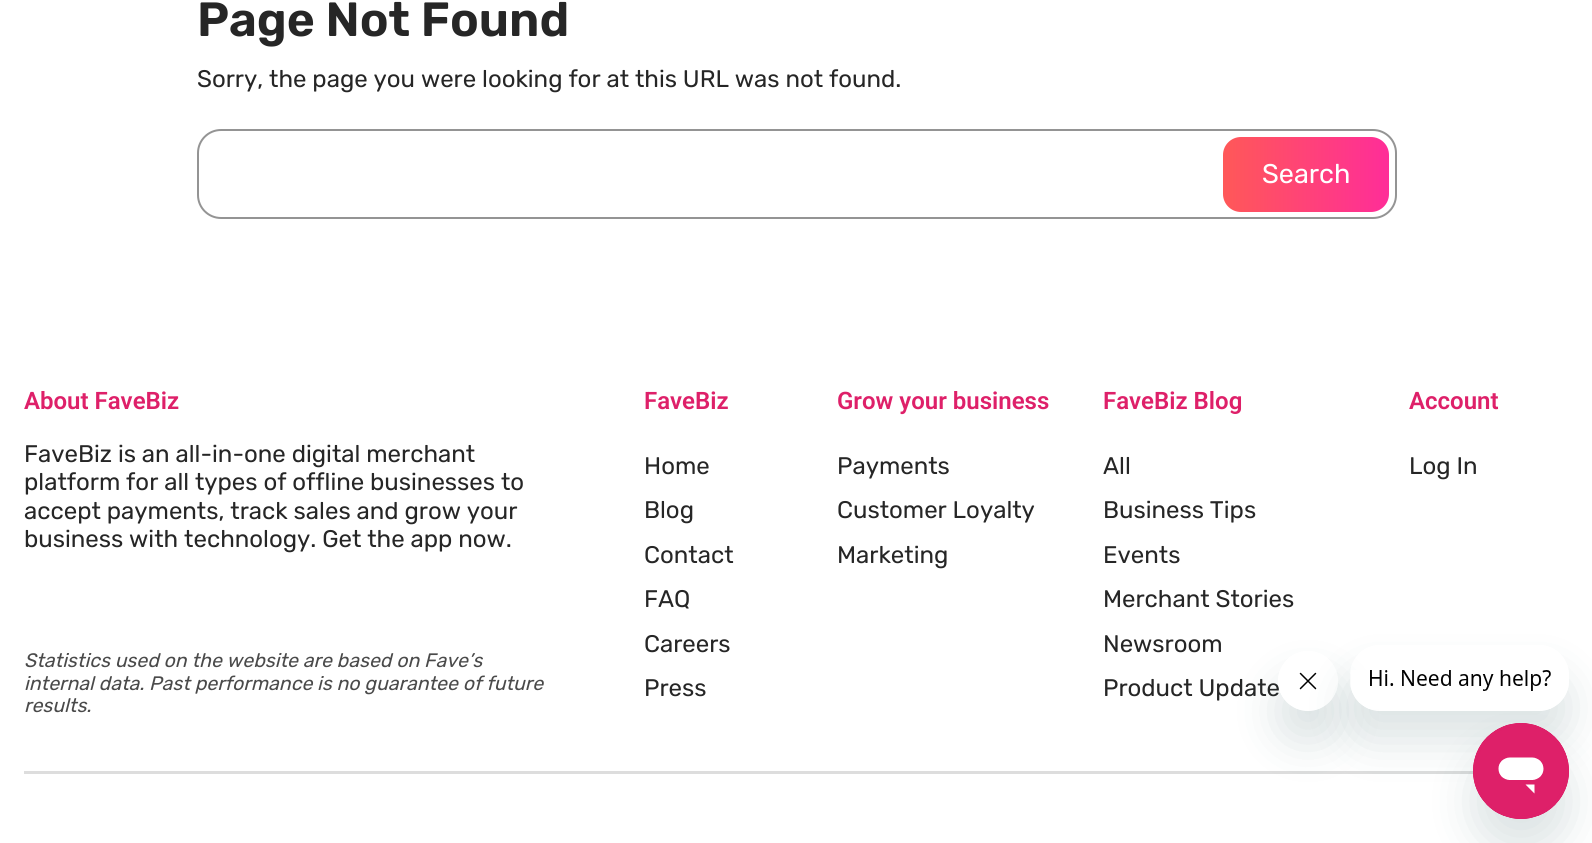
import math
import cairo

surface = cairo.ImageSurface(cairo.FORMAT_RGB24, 1592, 843)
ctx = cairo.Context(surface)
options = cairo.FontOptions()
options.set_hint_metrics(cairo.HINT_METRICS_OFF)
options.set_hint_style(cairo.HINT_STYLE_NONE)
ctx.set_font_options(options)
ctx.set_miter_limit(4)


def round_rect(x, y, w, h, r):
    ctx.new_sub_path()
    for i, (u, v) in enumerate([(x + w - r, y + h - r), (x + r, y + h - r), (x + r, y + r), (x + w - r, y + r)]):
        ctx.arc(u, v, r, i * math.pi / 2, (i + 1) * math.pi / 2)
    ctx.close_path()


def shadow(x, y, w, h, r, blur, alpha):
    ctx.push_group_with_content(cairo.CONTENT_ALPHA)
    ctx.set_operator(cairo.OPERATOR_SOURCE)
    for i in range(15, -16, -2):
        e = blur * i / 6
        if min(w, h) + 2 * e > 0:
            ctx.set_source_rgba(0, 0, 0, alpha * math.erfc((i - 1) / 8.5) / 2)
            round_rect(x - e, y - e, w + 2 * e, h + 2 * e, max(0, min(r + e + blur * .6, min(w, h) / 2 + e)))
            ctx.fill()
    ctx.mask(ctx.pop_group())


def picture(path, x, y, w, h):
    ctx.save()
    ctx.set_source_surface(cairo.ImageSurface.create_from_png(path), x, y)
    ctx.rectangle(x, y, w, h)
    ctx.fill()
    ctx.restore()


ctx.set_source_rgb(1, 1, 1)
ctx.paint()
ctx.select_font_face("Rubik SemiBold")
ctx.set_font_size(48)
ctx.set_source_rgb(0.149, 0.149, 0.149)
ctx.move_to(197, 36)
ctx.show_text("Page Not Found")
ctx.select_font_face("Rubik")
ctx.set_font_size(24)
ctx.move_to(197, 87)
ctx.show_text("Sorry, the page you were looking for at this URL was not found.")
round_rect(198, 130, 1198, 88, 23)
ctx.set_source_rgb(0.58, 0.58, 0.58)
ctx.stroke()
gradient = cairo.LinearGradient(1223, 174, 1389, 174)
gradient.add_color_stop_rgba(0, 1, 0.345, 0.345, 1)
gradient.add_color_stop_rgba(0.98, 1, 0.18, 0.592, 1)
ctx.set_source(gradient)
round_rect(1223, 137, 166, 75, 18)
ctx.fill()
ctx.set_font_size(27)
ctx.set_source_rgb(1, 1, 1)
ctx.move_to(1262, 183)
ctx.show_text("Search")
ctx.select_font_face("Roboto SemiBold")
ctx.set_font_size(24)
ctx.set_source_rgb(0.871, 0.125, 0.412)
ctx.move_to(24, 409)
ctx.show_text("About FaveBiz")
ctx.select_font_face("Rubik")
ctx.set_source_rgb(0.149, 0.149, 0.149)
ctx.move_to(24, 462)
ctx.show_text("FaveBiz is an all-in-one digital merchant")
ctx.move_to(24, 490)
ctx.show_text("platform for all types of offline businesses to")
ctx.move_to(24, 519)
ctx.show_text("accept payments, track sales and grow your")
ctx.move_to(24, 547)
ctx.show_text("business with technology. Get the app now.")
ctx.select_font_face("Rubik", cairo.FONT_SLANT_ITALIC)
ctx.set_font_size(19.5)
ctx.set_source_rgb(0.29, 0.29, 0.29)
ctx.move_to(24, 667)
ctx.show_text("Statistics used on the website are based on Fave’s")
ctx.move_to(24, 690)
ctx.show_text("internal data. Past performance is no guarantee of future")
ctx.move_to(24, 712)
ctx.show_text("results.")
ctx.select_font_face("Roboto SemiBold")
ctx.set_font_size(24)
ctx.set_source_rgb(0.871, 0.125, 0.412)
ctx.move_to(644, 409)
ctx.show_text("FaveBiz")
ctx.select_font_face("Rubik")
ctx.set_source_rgb(0.149, 0.149, 0.149)
ctx.move_to(644, 474)
ctx.show_text("Home")
ctx.move_to(644, 518)
ctx.show_text("Blog")
ctx.move_to(644, 563)
ctx.show_text("Contact")
ctx.move_to(644, 607)
ctx.show_text("FAQ")
ctx.move_to(644, 652)
ctx.show_text("Careers")
ctx.move_to(644, 696)
ctx.show_text("Press")
ctx.select_font_face("Roboto SemiBold")
ctx.set_source_rgb(0.871, 0.125, 0.412)
ctx.move_to(837, 409)
ctx.show_text("Grow your business")
ctx.select_font_face("Rubik")
ctx.set_source_rgb(0.149, 0.149, 0.149)
ctx.move_to(837, 474)
ctx.show_text("Payments")
ctx.move_to(837, 518)
ctx.show_text("Customer Loyalty")
ctx.move_to(837, 563)
ctx.show_text("Marketing")
ctx.select_font_face("Roboto SemiBold")
ctx.set_source_rgb(0.871, 0.125, 0.412)
ctx.move_to(1103, 409)
ctx.show_text("FaveBiz Blog")
ctx.select_font_face("Rubik")
ctx.set_source_rgb(0.149, 0.149, 0.149)
ctx.move_to(1103, 474)
ctx.show_text("All")
ctx.move_to(1103, 518)
ctx.show_text("Business Tips")
ctx.move_to(1103, 563)
ctx.show_text("Events")
ctx.move_to(1103, 607)
ctx.show_text("Merchant Stories")
ctx.move_to(1103, 652)
ctx.show_text("Newsroom")
ctx.move_to(1103, 696)
ctx.show_text("Product Update")
ctx.select_font_face("Roboto SemiBold")
ctx.set_source_rgb(0.871, 0.125, 0.412)
ctx.move_to(1409, 409)
ctx.show_text("Account")
ctx.select_font_face("Rubik")
ctx.set_source_rgb(0.149, 0.149, 0.149)
ctx.move_to(1409, 474)
ctx.show_text("Log In")
ctx.set_source_rgb(0.867, 0.867, 0.867)
ctx.rectangle(24, 771, 1449, 3)
ctx.fill()
ctx.save()
ctx.set_fill_rule(cairo.FILL_RULE_EVEN_ODD)
ctx.new_path()
ctx.move_to(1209, 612)
ctx.line_to(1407, 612)
ctx.line_to(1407, 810)
ctx.line_to(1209, 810)
ctx.close_path()
ctx.move_to(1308, 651)
ctx.curve_to(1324.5, 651, 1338, 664.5, 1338, 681)
ctx.curve_to(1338, 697.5, 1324.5, 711, 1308, 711)
ctx.curve_to(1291.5, 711, 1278, 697.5, 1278, 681)
ctx.curve_to(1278, 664.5, 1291.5, 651, 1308, 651)
ctx.close_path()
ctx.clip()
ctx.set_source_rgb(0.09, 0.286, 0.302)
shadow(1278, 681, 60, 60, 30, 22.5, 0.15)
ctx.restore()
picture("img2.png", 1278, 672, 39, 25)
ctx.save()
ctx.set_fill_rule(cairo.FILL_RULE_EVEN_ODD)
ctx.new_path()
ctx.move_to(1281, 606)
ctx.line_to(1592, 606)
ctx.line_to(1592, 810)
ctx.line_to(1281, 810)
ctx.close_path()
ctx.move_to(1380, 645)
ctx.line_to(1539, 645)
ctx.curve_to(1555.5, 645, 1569, 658.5, 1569, 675)
ctx.line_to(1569, 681)
ctx.curve_to(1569, 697.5, 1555.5, 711, 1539, 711)
ctx.line_to(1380, 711)
ctx.curve_to(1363.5, 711, 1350, 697.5, 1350, 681)
ctx.line_to(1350, 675)
ctx.curve_to(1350, 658.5, 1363.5, 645, 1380, 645)
ctx.close_path()
ctx.clip()
ctx.set_source_rgb(0.09, 0.286, 0.302)
shadow(1350, 675, 219, 66, 30, 22.5, 0.15)
ctx.restore()
picture("img1.png", 1351, 670, 200, 39)
ctx.set_source_rgb(0.09, 0.286, 0.302)
shadow(1473, 753, 96, 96, 48, 22.5, 0.15)
picture("img3.png", 1473, 723, 96, 96)
surface.write_to_png("page.png")
